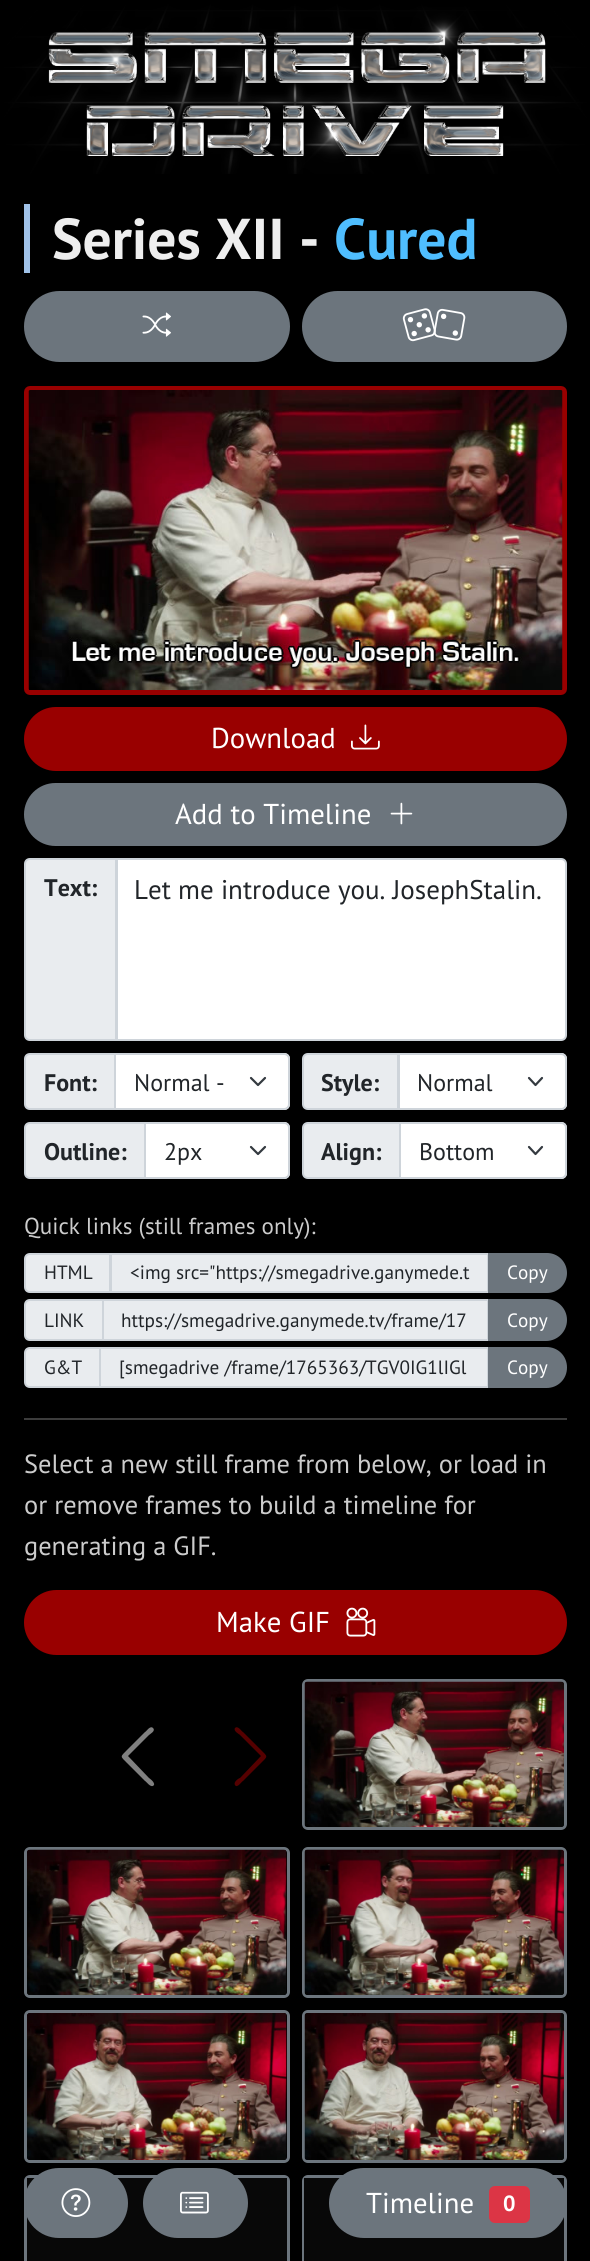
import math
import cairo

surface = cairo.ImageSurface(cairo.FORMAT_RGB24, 590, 2261)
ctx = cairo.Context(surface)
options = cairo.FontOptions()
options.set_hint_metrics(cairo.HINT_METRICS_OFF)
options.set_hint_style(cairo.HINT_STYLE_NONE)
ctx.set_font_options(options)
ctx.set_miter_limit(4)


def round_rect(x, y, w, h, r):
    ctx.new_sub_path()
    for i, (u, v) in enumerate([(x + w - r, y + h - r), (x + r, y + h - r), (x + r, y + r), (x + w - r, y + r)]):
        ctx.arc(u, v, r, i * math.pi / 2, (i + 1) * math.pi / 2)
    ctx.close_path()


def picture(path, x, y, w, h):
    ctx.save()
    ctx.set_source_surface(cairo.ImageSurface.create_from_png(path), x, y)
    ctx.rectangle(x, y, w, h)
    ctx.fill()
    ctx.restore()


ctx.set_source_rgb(0, 0, 0)
ctx.paint()
picture("img1.png", 0, 0, 590, 174)
ctx.set_source_rgb(0.627, 0.761, 0.91)
ctx.rectangle(24, 204, 6, 69)
ctx.fill()
ctx.select_font_face("PT Sans", cairo.FONT_SLANT_NORMAL, cairo.FONT_WEIGHT_BOLD)
ctx.set_font_size(57.5)
ctx.set_source_rgb(0.933, 0.933, 0.933)
ctx.move_to(52, 259)
ctx.show_text("Series XII -")
ctx.set_source_rgb(0.31, 0.745, 1)
ctx.move_to(334, 259)
ctx.show_text("Cured")
ctx.set_source_rgb(0.424, 0.459, 0.49)
round_rect(25, 292, 264, 69, 34.5)
ctx.fill_preserve()
ctx.stroke()
picture("img2.png", 142, 312, 29, 25)
round_rect(303, 292, 263, 69, 34.5)
ctx.fill_preserve()
ctx.stroke()
picture("img3.png", 402, 308, 34, 34)
picture("img4.png", 433, 308, 33, 33)
round_rect(26.5, 388.5, 538, 304, 3.5)
ctx.set_source_rgb(0.6, 0, 0)
ctx.set_line_width(5)
ctx.stroke()
picture("img5.png", 28, 390, 535, 300)
round_rect(25, 708, 541, 62, 31)
ctx.fill_preserve()
ctx.set_line_width(2)
ctx.stroke()
ctx.select_font_face("PT Sans")
ctx.set_font_size(28.75)
ctx.set_source_rgb(1, 1, 1)
ctx.move_to(211, 748)
ctx.show_text("Download")
picture("img6.png", 351, 724, 29, 26)
ctx.set_source_rgb(0.424, 0.459, 0.49)
round_rect(25, 784, 541, 61, 30.5)
ctx.fill_preserve()
ctx.stroke()
ctx.set_source_rgb(1, 1, 1)
ctx.move_to(175, 824)
ctx.show_text("Add to Timeline")
picture("img7.png", 390, 802, 23, 23)
ctx.set_source_rgb(0.914, 0.925, 0.937)
ctx.new_path()
ctx.move_to(30, 859)
ctx.line_to(116, 859)
ctx.line_to(116, 1040)
ctx.line_to(30, 1040)
ctx.curve_to(27, 1040, 25, 1038, 25, 1035)
ctx.line_to(25, 864)
ctx.curve_to(25, 861, 27, 859, 30, 859)
ctx.close_path()
ctx.fill_preserve()
ctx.set_source_rgb(0.808, 0.831, 0.855)
ctx.stroke()
ctx.select_font_face("PT Sans", cairo.FONT_SLANT_NORMAL, cairo.FONT_WEIGHT_BOLD)
ctx.set_font_size(24)
ctx.set_source_rgb(0.129, 0.145, 0.161)
ctx.move_to(44, 896)
ctx.show_text("Text:")
ctx.set_source_rgb(1, 1, 1)
ctx.new_path()
ctx.move_to(117, 859)
ctx.line_to(561, 859)
ctx.curve_to(564, 859, 566, 861, 566, 864)
ctx.line_to(566, 1035)
ctx.curve_to(566, 1038, 564, 1040, 561, 1040)
ctx.line_to(117, 1040)
ctx.close_path()
ctx.fill_preserve()
ctx.set_source_rgb(0.808, 0.831, 0.855)
ctx.stroke()
ctx.select_font_face("PT Sans")
ctx.set_font_size(27)
ctx.set_source_rgb(0.129, 0.145, 0.161)
ctx.move_to(134, 899)
ctx.show_text("Let me introduce you. JosephStalin.")
ctx.set_source_rgb(0.914, 0.925, 0.937)
ctx.new_path()
ctx.move_to(30, 1054)
ctx.line_to(115, 1054)
ctx.line_to(115, 1109)
ctx.line_to(30, 1109)
ctx.curve_to(27, 1109, 25, 1107, 25, 1104)
ctx.line_to(25, 1059)
ctx.curve_to(25, 1056, 27, 1054, 30, 1054)
ctx.close_path()
ctx.fill_preserve()
ctx.set_source_rgb(0.808, 0.831, 0.855)
ctx.stroke()
ctx.select_font_face("PT Sans", cairo.FONT_SLANT_NORMAL, cairo.FONT_WEIGHT_BOLD)
ctx.set_font_size(24)
ctx.set_source_rgb(0.129, 0.145, 0.161)
ctx.move_to(44, 1091)
ctx.show_text("Font:")
ctx.set_source_rgb(1, 1, 1)
ctx.new_path()
ctx.move_to(114, 1053)
ctx.line_to(284, 1053)
ctx.curve_to(287.5, 1053, 290, 1055.5, 290, 1059)
ctx.line_to(290, 1104)
ctx.curve_to(290, 1107.5, 287.5, 1110, 284, 1110)
ctx.line_to(114, 1110)
ctx.close_path()
ctx.fill()
ctx.new_path()
ctx.move_to(251, 1078)
ctx.line_to(258, 1085)
ctx.line_to(265, 1078)
ctx.set_source_rgb(0.204, 0.227, 0.251)
ctx.set_line_width(2.2)
ctx.set_line_cap(cairo.LINE_CAP_ROUND)
ctx.set_line_join(cairo.LINE_JOIN_ROUND)
ctx.stroke()
ctx.new_path()
ctx.move_to(115, 1054)
ctx.line_to(284, 1054)
ctx.curve_to(287, 1054, 289, 1056, 289, 1059)
ctx.line_to(289, 1104)
ctx.curve_to(289, 1107, 287, 1109, 284, 1109)
ctx.line_to(115, 1109)
ctx.close_path()
ctx.set_source_rgb(0.808, 0.831, 0.855)
ctx.set_line_width(2)
ctx.set_line_cap(cairo.LINE_CAP_BUTT)
ctx.set_line_join(cairo.LINE_JOIN_MITER)
ctx.stroke()
ctx.select_font_face("PT Sans")
ctx.set_source_rgb(0.129, 0.145, 0.161)
ctx.move_to(134, 1091)
ctx.show_text("Normal -")
ctx.set_source_rgb(0.914, 0.925, 0.937)
ctx.new_path()
ctx.move_to(308, 1054)
ctx.line_to(398, 1054)
ctx.line_to(398, 1109)
ctx.line_to(308, 1109)
ctx.curve_to(305, 1109, 303, 1107, 303, 1104)
ctx.line_to(303, 1059)
ctx.curve_to(303, 1056, 305, 1054, 308, 1054)
ctx.close_path()
ctx.fill_preserve()
ctx.set_source_rgb(0.808, 0.831, 0.855)
ctx.stroke()
ctx.select_font_face("PT Sans", cairo.FONT_SLANT_NORMAL, cairo.FONT_WEIGHT_BOLD)
ctx.set_source_rgb(0.129, 0.145, 0.161)
ctx.move_to(321, 1091)
ctx.show_text("Style:")
ctx.set_source_rgb(1, 1, 1)
ctx.new_path()
ctx.move_to(398, 1053)
ctx.line_to(561, 1053)
ctx.curve_to(564.5, 1053, 567, 1055.5, 567, 1059)
ctx.line_to(567, 1104)
ctx.curve_to(567, 1107.5, 564.5, 1110, 561, 1110)
ctx.line_to(398, 1110)
ctx.close_path()
ctx.fill()
ctx.new_path()
ctx.move_to(529, 1078)
ctx.line_to(535.5, 1085)
ctx.line_to(542, 1078)
ctx.set_source_rgb(0.204, 0.227, 0.251)
ctx.set_line_width(2.2)
ctx.set_line_cap(cairo.LINE_CAP_ROUND)
ctx.set_line_join(cairo.LINE_JOIN_ROUND)
ctx.stroke()
ctx.new_path()
ctx.move_to(399, 1054)
ctx.line_to(561, 1054)
ctx.curve_to(564, 1054, 566, 1056, 566, 1059)
ctx.line_to(566, 1104)
ctx.curve_to(566, 1107, 564, 1109, 561, 1109)
ctx.line_to(399, 1109)
ctx.close_path()
ctx.set_source_rgb(0.808, 0.831, 0.855)
ctx.set_line_width(2)
ctx.set_line_cap(cairo.LINE_CAP_BUTT)
ctx.set_line_join(cairo.LINE_JOIN_MITER)
ctx.stroke()
ctx.select_font_face("PT Sans")
ctx.set_source_rgb(0.129, 0.145, 0.161)
ctx.move_to(417, 1091)
ctx.show_text("Normal")
ctx.set_source_rgb(0.914, 0.925, 0.937)
ctx.new_path()
ctx.move_to(30, 1123)
ctx.line_to(145, 1123)
ctx.line_to(145, 1178)
ctx.line_to(30, 1178)
ctx.curve_to(27, 1178, 25, 1176, 25, 1173)
ctx.line_to(25, 1128)
ctx.curve_to(25, 1125, 27, 1123, 30, 1123)
ctx.close_path()
ctx.fill_preserve()
ctx.set_source_rgb(0.808, 0.831, 0.855)
ctx.stroke()
ctx.select_font_face("PT Sans", cairo.FONT_SLANT_NORMAL, cairo.FONT_WEIGHT_BOLD)
ctx.set_source_rgb(0.129, 0.145, 0.161)
ctx.move_to(44, 1160)
ctx.show_text("Outline:")
ctx.set_source_rgb(1, 1, 1)
ctx.new_path()
ctx.move_to(144, 1122)
ctx.line_to(284, 1122)
ctx.curve_to(287.5, 1122, 290, 1124.5, 290, 1128)
ctx.line_to(290, 1173)
ctx.curve_to(290, 1176.5, 287.5, 1179, 284, 1179)
ctx.line_to(144, 1179)
ctx.close_path()
ctx.fill()
ctx.new_path()
ctx.move_to(251, 1147)
ctx.line_to(258, 1154)
ctx.line_to(265, 1147)
ctx.set_source_rgb(0.204, 0.227, 0.251)
ctx.set_line_width(2.2)
ctx.set_line_cap(cairo.LINE_CAP_ROUND)
ctx.set_line_join(cairo.LINE_JOIN_ROUND)
ctx.stroke()
ctx.new_path()
ctx.move_to(145, 1123)
ctx.line_to(284, 1123)
ctx.curve_to(287, 1123, 289, 1125, 289, 1128)
ctx.line_to(289, 1173)
ctx.curve_to(289, 1176, 287, 1178, 284, 1178)
ctx.line_to(145, 1178)
ctx.close_path()
ctx.set_source_rgb(0.808, 0.831, 0.855)
ctx.set_line_width(2)
ctx.set_line_cap(cairo.LINE_CAP_BUTT)
ctx.set_line_join(cairo.LINE_JOIN_MITER)
ctx.stroke()
ctx.select_font_face("PT Sans")
ctx.set_source_rgb(0.129, 0.145, 0.161)
ctx.move_to(164, 1160)
ctx.show_text("2px")
ctx.set_source_rgb(0.914, 0.925, 0.937)
ctx.new_path()
ctx.move_to(308, 1123)
ctx.line_to(400, 1123)
ctx.line_to(400, 1178)
ctx.line_to(308, 1178)
ctx.curve_to(305, 1178, 303, 1176, 303, 1173)
ctx.line_to(303, 1128)
ctx.curve_to(303, 1125, 305, 1123, 308, 1123)
ctx.close_path()
ctx.fill_preserve()
ctx.set_source_rgb(0.808, 0.831, 0.855)
ctx.stroke()
ctx.select_font_face("PT Sans", cairo.FONT_SLANT_NORMAL, cairo.FONT_WEIGHT_BOLD)
ctx.set_source_rgb(0.129, 0.145, 0.161)
ctx.move_to(321, 1160)
ctx.show_text("Align:")
ctx.set_source_rgb(1, 1, 1)
ctx.new_path()
ctx.move_to(399, 1122)
ctx.line_to(561, 1122)
ctx.curve_to(564.5, 1122, 567, 1124.5, 567, 1128)
ctx.line_to(567, 1173)
ctx.curve_to(567, 1176.5, 564.5, 1179, 561, 1179)
ctx.line_to(399, 1179)
ctx.close_path()
ctx.fill()
ctx.new_path()
ctx.move_to(529, 1147)
ctx.line_to(535.5, 1154)
ctx.line_to(542, 1147)
ctx.set_source_rgb(0.204, 0.227, 0.251)
ctx.set_line_width(2.2)
ctx.set_line_cap(cairo.LINE_CAP_ROUND)
ctx.set_line_join(cairo.LINE_JOIN_ROUND)
ctx.stroke()
ctx.new_path()
ctx.move_to(400, 1123)
ctx.line_to(561, 1123)
ctx.curve_to(564, 1123, 566, 1125, 566, 1128)
ctx.line_to(566, 1173)
ctx.curve_to(566, 1176, 564, 1178, 561, 1178)
ctx.line_to(400, 1178)
ctx.close_path()
ctx.set_source_rgb(0.808, 0.831, 0.855)
ctx.set_line_width(2)
ctx.set_line_cap(cairo.LINE_CAP_BUTT)
ctx.set_line_join(cairo.LINE_JOIN_MITER)
ctx.stroke()
ctx.select_font_face("PT Sans")
ctx.set_source_rgb(0.129, 0.145, 0.161)
ctx.move_to(419, 1160)
ctx.show_text("Bottom")
ctx.set_font_size(23.1)
ctx.set_source_rgb(0.8, 0.8, 0.8)
ctx.move_to(24, 1234)
ctx.show_text("Quick links (still frames only):")
ctx.set_source_rgb(0.914, 0.925, 0.937)
ctx.new_path()
ctx.move_to(30, 1254)
ctx.line_to(110, 1254)
ctx.line_to(110, 1292)
ctx.line_to(30, 1292)
ctx.curve_to(27, 1292, 25, 1290, 25, 1287)
ctx.line_to(25, 1259)
ctx.curve_to(25, 1256, 27, 1254, 30, 1254)
ctx.close_path()
ctx.fill_preserve()
ctx.set_source_rgb(0.808, 0.831, 0.855)
ctx.stroke()
ctx.set_font_size(19.25)
ctx.set_source_rgb(0.129, 0.145, 0.161)
ctx.move_to(44, 1279)
ctx.show_text("HTML")
ctx.set_source_rgb(0.914, 0.925, 0.937)
ctx.rectangle(111, 1254, 377, 38)
ctx.fill_preserve()
ctx.set_source_rgb(0.808, 0.831, 0.855)
ctx.stroke()
ctx.set_source_rgb(0.129, 0.145, 0.161)
ctx.move_to(130, 1279)
ctx.show_text("<img src=\"https://smegadrive.ganymede.t")
ctx.set_source_rgb(0.424, 0.459, 0.49)
ctx.new_path()
ctx.move_to(489, 1254)
ctx.line_to(547, 1254)
ctx.curve_to(557.5, 1254, 566, 1262.5, 566, 1273)
ctx.curve_to(566, 1283.5, 557.5, 1292, 547, 1292)
ctx.line_to(489, 1292)
ctx.close_path()
ctx.fill_preserve()
ctx.stroke()
ctx.set_source_rgb(1, 1, 1)
ctx.move_to(507, 1279)
ctx.show_text("Copy")
ctx.set_source_rgb(0.914, 0.925, 0.937)
ctx.new_path()
ctx.move_to(30, 1300)
ctx.line_to(103, 1300)
ctx.line_to(103, 1340)
ctx.line_to(30, 1340)
ctx.curve_to(27, 1340, 25, 1338, 25, 1335)
ctx.line_to(25, 1305)
ctx.curve_to(25, 1302, 27, 1300, 30, 1300)
ctx.close_path()
ctx.fill_preserve()
ctx.set_source_rgb(0.808, 0.831, 0.855)
ctx.stroke()
ctx.set_source_rgb(0.129, 0.145, 0.161)
ctx.move_to(44, 1327)
ctx.show_text("LINK")
ctx.set_source_rgb(0.914, 0.925, 0.937)
ctx.rectangle(103, 1300, 385, 40)
ctx.fill_preserve()
ctx.set_source_rgb(0.808, 0.831, 0.855)
ctx.stroke()
ctx.set_source_rgb(0.129, 0.145, 0.161)
ctx.move_to(121, 1327)
ctx.show_text("https://smegadrive.ganymede.tv/frame/17")
ctx.set_source_rgb(0.424, 0.459, 0.49)
ctx.new_path()
ctx.move_to(489, 1300)
ctx.line_to(546, 1300)
ctx.curve_to(557, 1300, 566, 1309, 566, 1320)
ctx.curve_to(566, 1331, 557, 1340, 546, 1340)
ctx.line_to(489, 1340)
ctx.close_path()
ctx.fill_preserve()
ctx.stroke()
ctx.set_source_rgb(1, 1, 1)
ctx.move_to(507, 1327)
ctx.show_text("Copy")
ctx.set_source_rgb(0.914, 0.925, 0.937)
ctx.new_path()
ctx.move_to(30, 1348)
ctx.line_to(100, 1348)
ctx.line_to(100, 1387)
ctx.line_to(30, 1387)
ctx.curve_to(27, 1387, 25, 1385, 25, 1382)
ctx.line_to(25, 1353)
ctx.curve_to(25, 1350, 27, 1348, 30, 1348)
ctx.close_path()
ctx.fill_preserve()
ctx.set_source_rgb(0.808, 0.831, 0.855)
ctx.stroke()
ctx.set_source_rgb(0.129, 0.145, 0.161)
ctx.move_to(44, 1374)
ctx.show_text("G&T")
ctx.set_source_rgb(0.914, 0.925, 0.937)
ctx.rectangle(100, 1348, 388, 39)
ctx.fill_preserve()
ctx.set_source_rgb(0.808, 0.831, 0.855)
ctx.stroke()
ctx.set_source_rgb(0.129, 0.145, 0.161)
ctx.move_to(119, 1374)
ctx.show_text("[smegadrive /frame/1765363/TGV0IG1lIGl")
ctx.set_source_rgb(0.424, 0.459, 0.49)
ctx.new_path()
ctx.move_to(489, 1348)
ctx.line_to(546.5, 1348)
ctx.curve_to(557.5, 1348, 566, 1356.5, 566, 1367.5)
ctx.curve_to(566, 1378.5, 557.5, 1387, 546.5, 1387)
ctx.line_to(489, 1387)
ctx.close_path()
ctx.fill_preserve()
ctx.stroke()
ctx.set_source_rgb(1, 1, 1)
ctx.move_to(507, 1374)
ctx.show_text("Copy")
ctx.set_source_rgb(0.235, 0.235, 0.235)
ctx.rectangle(24, 1418, 543, 2)
ctx.fill()
ctx.set_font_size(26.4)
ctx.set_source_rgb(0.8, 0.8, 0.8)
ctx.move_to(24, 1473)
ctx.show_text("Select a new still frame from below, or load in")
ctx.move_to(24, 1514)
ctx.show_text("or remove frames to build a timeline for")
ctx.move_to(24, 1555)
ctx.show_text("generating a GIF.")
ctx.set_source_rgb(0.6, 0, 0)
round_rect(25, 1591, 541, 63, 31.5)
ctx.fill_preserve()
ctx.stroke()
ctx.set_font_size(28.75)
ctx.set_source_rgb(1, 1, 1)
ctx.move_to(216, 1632)
ctx.show_text("Make GIF")
picture("img8.png", 346, 1607, 30, 30)
ctx.set_source_rgb(0.502, 0.502, 0.502)
ctx.new_path()
ctx.move_to(153, 1728)
ctx.curve_to(156, 1731, 150, 1734, 149, 1735)
ctx.line_to(128, 1756)
ctx.line_to(149, 1778)
ctx.curve_to(149, 1778, 155, 1782, 154, 1785)
ctx.curve_to(151, 1789, 146, 1781, 145, 1781)
ctx.line_to(127, 1763)
ctx.curve_to(120, 1756, 120, 1757, 127, 1750)
ctx.line_to(145, 1732)
ctx.curve_to(146, 1732, 150, 1725, 153, 1728)
ctx.close_path()
ctx.fill()
ctx.set_source_rgb(0.333, 0, 0)
ctx.new_path()
ctx.move_to(235, 1728)
ctx.curve_to(238, 1725, 242, 1732, 243, 1732)
ctx.line_to(261, 1750)
ctx.curve_to(268, 1757, 268, 1756, 261, 1763)
ctx.line_to(243, 1781)
ctx.curve_to(242, 1781, 237, 1789, 235, 1785)
ctx.curve_to(233, 1782, 239, 1778, 240, 1778)
ctx.line_to(261, 1756)
ctx.line_to(240, 1735)
ctx.curve_to(239, 1734, 233, 1731, 235, 1728)
ctx.close_path()
ctx.fill()
round_rect(303.5, 1680.5, 262, 148, 4.5)
ctx.set_source_rgb(0.424, 0.459, 0.49)
ctx.set_line_width(3)
ctx.stroke()
picture("img9.png", 304, 1681, 260, 146)
round_rect(25.5, 1848.5, 263, 148, 4.5)
ctx.stroke()
picture("img10.png", 27, 1849, 260, 146)
round_rect(303.5, 1848.5, 262, 148, 4.5)
ctx.stroke()
picture("img11.png", 304, 1849, 260, 146)
round_rect(25.5, 2011.5, 263, 150, 4.5)
ctx.stroke()
picture("img12.png", 27, 2013, 260, 147)
round_rect(303.5, 2011.5, 262, 150, 4.5)
ctx.stroke()
picture("img13.png", 304, 2013, 260, 147)
round_rect(25.5, 2176.5, 263, 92, 4.5)
ctx.stroke()
ctx.set_source_rgb(0.035, 0.035, 0.035)
ctx.rectangle(27, 2178, 260, 83)
ctx.fill()
round_rect(303.5, 2176.5, 262, 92, 4.5)
ctx.set_source_rgb(0.424, 0.459, 0.49)
ctx.stroke()
ctx.set_source_rgb(0.035, 0.035, 0.035)
ctx.rectangle(304, 2178, 260, 83)
ctx.fill()
ctx.set_source_rgb(0.424, 0.459, 0.49)
round_rect(25, 2169, 102, 68, 34)
ctx.fill_preserve()
ctx.set_line_width(2)
ctx.stroke()
picture("img14.png", 61, 2188, 30, 29)
round_rect(144, 2169, 103, 68, 34)
ctx.fill_preserve()
ctx.stroke()
picture("img15.png", 180, 2191, 29, 23)
round_rect(330, 2169, 236, 68, 34)
ctx.fill_preserve()
ctx.stroke()
ctx.set_source_rgb(1, 1, 1)
ctx.move_to(366, 2213)
ctx.show_text("Timeline")
ctx.set_source_rgb(0.863, 0.208, 0.271)
round_rect(489, 2186, 41, 37, 6)
ctx.fill()
ctx.select_font_face("PT Sans", cairo.FONT_SLANT_NORMAL, cairo.FONT_WEIGHT_BOLD)
ctx.set_font_size(22)
ctx.set_source_rgb(1, 1, 1)
ctx.move_to(503, 2211)
ctx.show_text("0")
surface.write_to_png("page.png")
